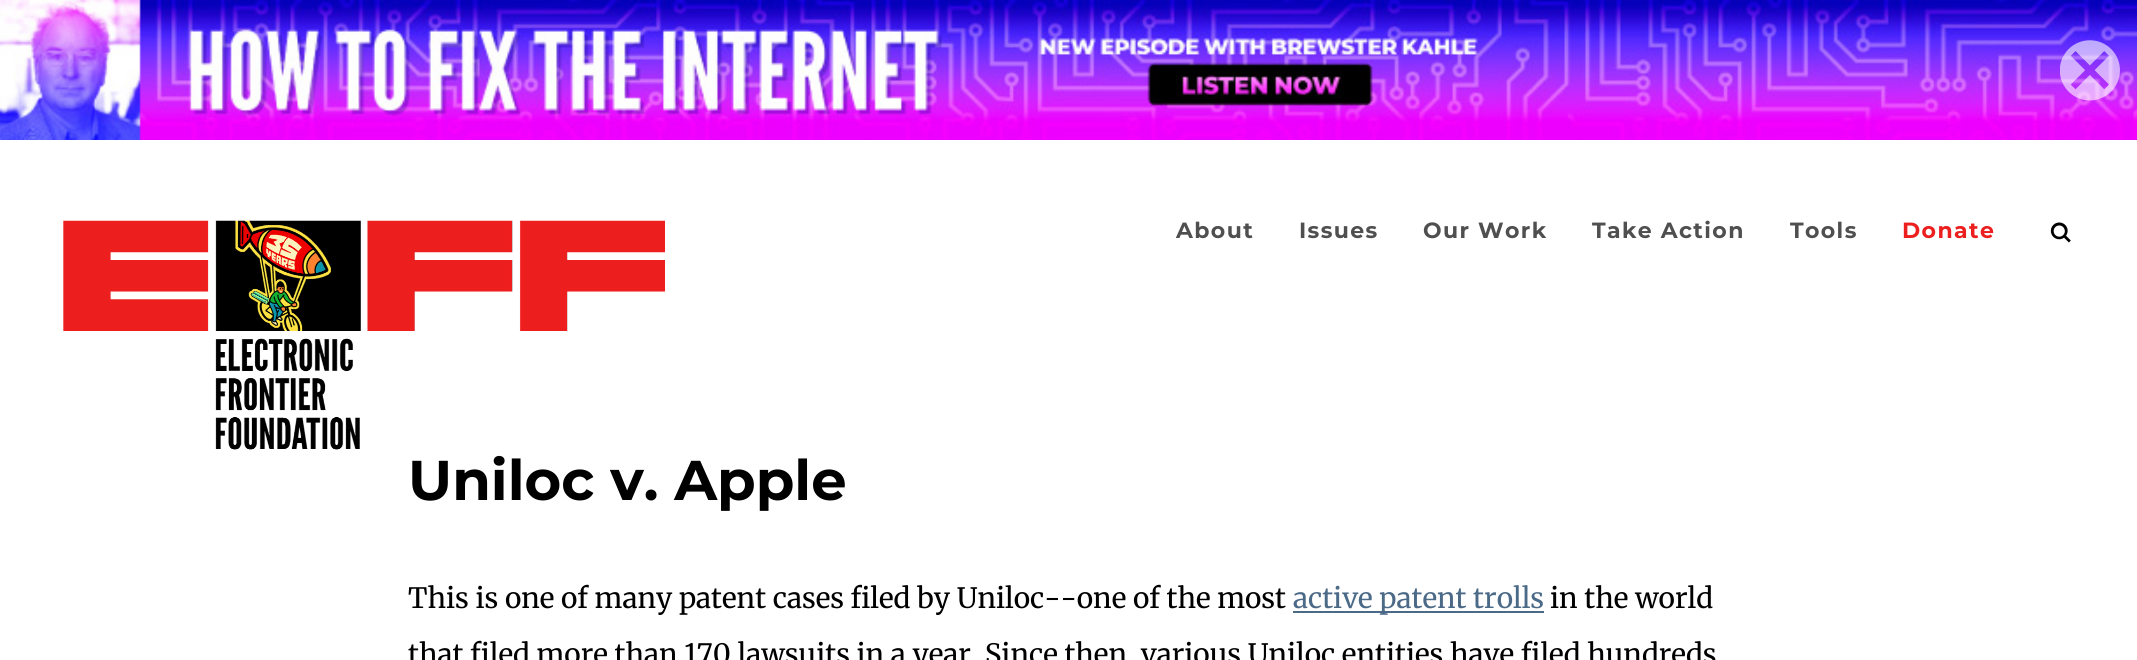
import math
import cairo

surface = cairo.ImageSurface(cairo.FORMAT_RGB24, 2137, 660)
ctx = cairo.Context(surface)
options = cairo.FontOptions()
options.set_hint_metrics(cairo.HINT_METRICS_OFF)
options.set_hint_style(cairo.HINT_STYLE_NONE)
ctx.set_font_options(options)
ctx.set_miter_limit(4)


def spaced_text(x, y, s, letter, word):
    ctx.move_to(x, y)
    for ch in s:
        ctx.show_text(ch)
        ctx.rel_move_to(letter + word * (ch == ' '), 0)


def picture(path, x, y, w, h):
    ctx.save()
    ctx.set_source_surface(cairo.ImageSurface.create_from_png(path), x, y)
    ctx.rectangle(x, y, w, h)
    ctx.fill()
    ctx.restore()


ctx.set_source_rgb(1, 1, 1)
ctx.paint()
picture("img1.png", 0, 0, 2137, 140)
picture("img2.png", 2060, 40, 60, 61)
picture("img3.png", 63, 220, 602, 230)
ctx.select_font_face("Montserrat", cairo.FONT_SLANT_NORMAL, cairo.FONT_WEIGHT_BOLD)
ctx.set_font_size(22)
ctx.set_source_rgb(0.31, 0.31, 0.31)
spaced_text(1176, 238, "About", 1.4, 0)
spaced_text(1299, 238, "Issues", 1.4, 0)
spaced_text(1423, 238, "Our Work", 1.4, 0)
spaced_text(1592, 238, "Take Action", 1.4, 0)
spaced_text(1790, 238, "Tools", 1.4, 0)
ctx.set_source_rgb(0.925, 0.118, 0.118)
spaced_text(1902, 238, "Donate", 1.4, 0)
picture("img4.png", 2050, 222, 21, 21)
ctx.set_font_size(56)
ctx.set_source_rgb(0, 0, 0)
ctx.move_to(408, 500)
ctx.show_text("Uniloc v. Apple")
ctx.select_font_face("Merriweather")
ctx.set_font_size(28)
ctx.move_to(408, 608)
ctx.show_text("This is one of many patent cases filed by Uniloc--one of the most")
ctx.set_source_rgb(0.294, 0.416, 0.533)
ctx.rectangle(1293, 611, 251, 2)
ctx.fill()
ctx.move_to(1293, 608)
ctx.show_text("active patent trolls")
ctx.set_source_rgb(0, 0, 0)
ctx.move_to(1550, 608)
ctx.show_text("in the world")
ctx.move_to(408, 664)
ctx.show_text("that filed more than 170 lawsuits in a year. Since then, various Uniloc entities have filed hundreds")
surface.write_to_png("page.png")
